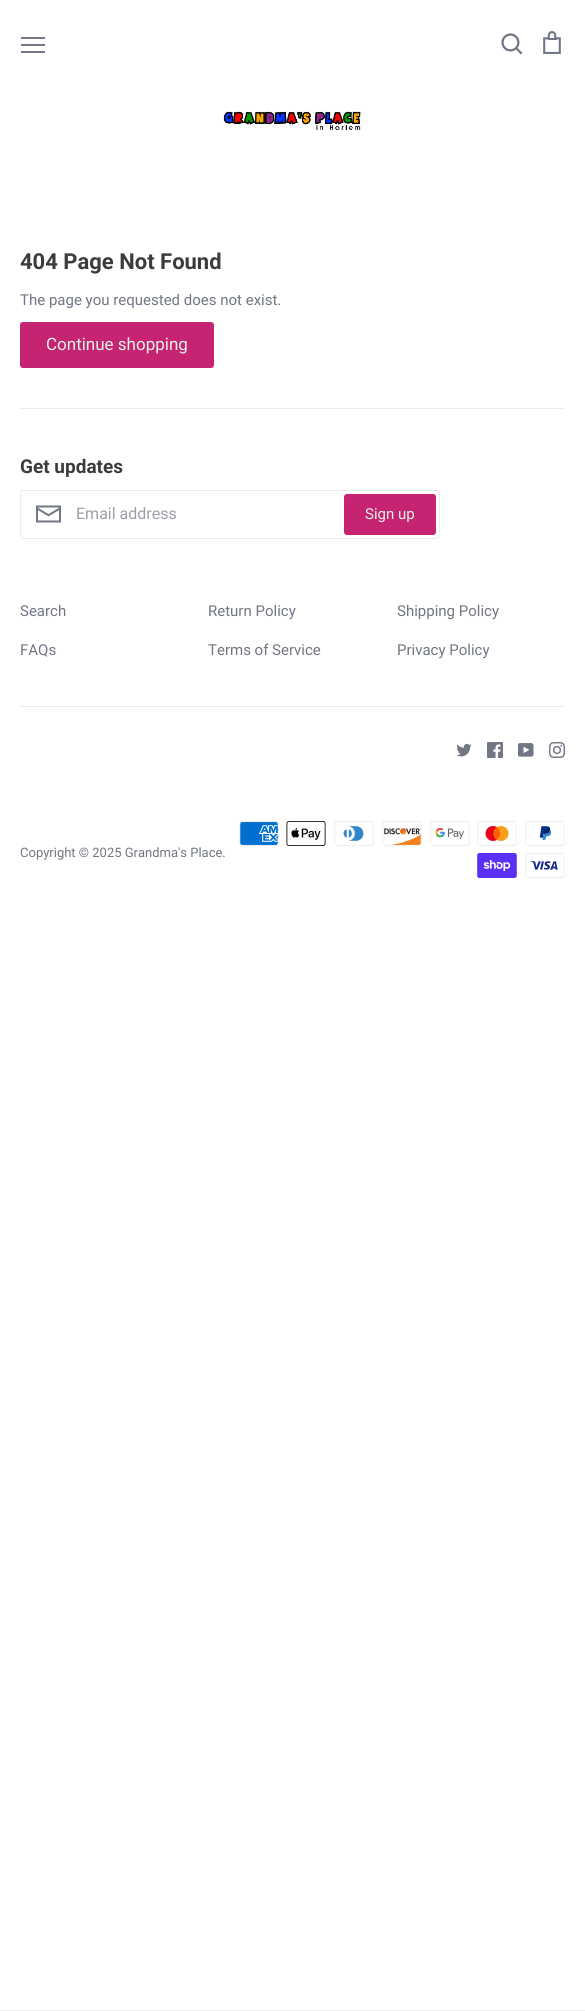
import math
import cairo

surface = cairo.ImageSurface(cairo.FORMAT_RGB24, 585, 2011)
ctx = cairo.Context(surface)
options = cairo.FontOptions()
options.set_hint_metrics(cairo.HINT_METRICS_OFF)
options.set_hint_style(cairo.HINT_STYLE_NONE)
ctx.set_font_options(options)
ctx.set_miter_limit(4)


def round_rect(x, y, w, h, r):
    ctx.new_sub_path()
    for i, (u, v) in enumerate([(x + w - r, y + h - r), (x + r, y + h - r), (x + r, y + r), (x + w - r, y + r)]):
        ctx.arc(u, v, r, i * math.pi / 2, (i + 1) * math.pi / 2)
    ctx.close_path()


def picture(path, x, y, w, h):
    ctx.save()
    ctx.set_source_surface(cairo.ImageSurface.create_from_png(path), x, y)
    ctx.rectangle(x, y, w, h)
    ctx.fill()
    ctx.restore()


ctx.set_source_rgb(1, 1, 1)
ctx.paint()
ctx.set_source_rgb(0.447, 0.463, 0.522)
ctx.rectangle(21, 37, 24, 2)
ctx.fill()
ctx.rectangle(21, 44, 24, 2)
ctx.fill()
ctx.rectangle(21, 51, 24, 2)
ctx.fill()
picture("img1.png", 501, 33, 22, 22)
picture("img2.png", 543, 31, 18, 23)
picture("img3.png", 223, 111, 138, 19)
ctx.set_source_rgb(0.918, 0.918, 0.929)
ctx.rectangle(0, 2010, 585, 1)
ctx.fill()
ctx.select_font_face("Roboto", cairo.FONT_SLANT_NORMAL, cairo.FONT_WEIGHT_BOLD)
ctx.set_font_size(22)
ctx.set_source_rgb(0.235, 0.235, 0.235)
ctx.move_to(20, 269)
ctx.show_text("404 Page Not Found")
ctx.select_font_face("Roboto")
ctx.set_font_size(15)
ctx.set_source_rgb(0.447, 0.463, 0.522)
ctx.move_to(20, 305)
ctx.show_text("The page you requested does not exist.")
ctx.set_source_rgb(0.776, 0.141, 0.451)
round_rect(20.5, 322.5, 193, 45, 2.5)
ctx.fill_preserve()
ctx.set_line_width(1)
ctx.stroke()
ctx.set_font_size(17)
ctx.set_source_rgb(0.878, 0.949, 0.91)
ctx.move_to(46, 350)
ctx.show_text("Continue shopping")
ctx.set_source_rgb(0.918, 0.918, 0.929)
ctx.rectangle(20, 408, 545, 1)
ctx.fill()
ctx.select_font_face("Roboto", cairo.FONT_SLANT_NORMAL, cairo.FONT_WEIGHT_BOLD)
ctx.set_font_size(19)
ctx.set_source_rgb(0.235, 0.235, 0.235)
ctx.move_to(20, 473)
ctx.show_text("Get updates")
round_rect(20.5, 490.5, 419, 48, 2.5)
ctx.set_source_rgb(0.918, 0.918, 0.929)
ctx.stroke()
picture("img4.png", 36, 505, 25, 18)
ctx.set_source_rgb(1, 1, 1)
ctx.rectangle(21, 491, 1, 47)
ctx.fill()
ctx.select_font_face("Roboto")
ctx.set_font_size(16)
ctx.set_source_rgb(0.612, 0.624, 0.667)
ctx.move_to(76, 519)
ctx.show_text("Email address")
ctx.set_source_rgb(0.776, 0.141, 0.451)
round_rect(344.5, 494.5, 91, 40, 2.5)
ctx.fill_preserve()
ctx.stroke()
ctx.set_font_size(15)
ctx.set_source_rgb(0.878, 0.949, 0.91)
ctx.move_to(365, 519)
ctx.show_text("Sign up")
ctx.set_source_rgb(0.447, 0.463, 0.522)
ctx.move_to(20, 616)
ctx.show_text("Search")
ctx.move_to(208, 616)
ctx.show_text("Return Policy")
ctx.move_to(397, 616)
ctx.show_text("Shipping Policy")
ctx.move_to(20, 655)
ctx.show_text("FAQs")
ctx.move_to(208, 655)
ctx.show_text("Terms of Service")
ctx.move_to(397, 655)
ctx.show_text("Privacy Policy")
ctx.set_source_rgb(0.918, 0.918, 0.929)
ctx.rectangle(20, 706, 545, 1)
ctx.fill()
picture("img5.png", 456, 743, 16, 14)
picture("img6.png", 487, 742, 16, 16)
picture("img7.png", 518, 743, 16, 14)
picture("img8.png", 549, 742, 16, 16)
ctx.set_font_size(13)
ctx.set_source_rgb(0.447, 0.463, 0.522)
ctx.move_to(20, 857)
ctx.show_text("Copyright © 2025 Grandma's Place.")
picture("img9.png", 239, 821, 40, 25)
picture("img10.png", 286, 821, 40, 25)
picture("img11.png", 334, 821, 40, 25)
picture("img12.png", 382, 821, 40, 25)
picture("img13.png", 430, 821, 40, 25)
picture("img14.png", 477, 821, 40, 25)
picture("img15.png", 525, 821, 40, 25)
picture("img16.png", 477, 853, 40, 25)
picture("img17.png", 525, 853, 40, 25)
surface.write_to_png("page.png")
